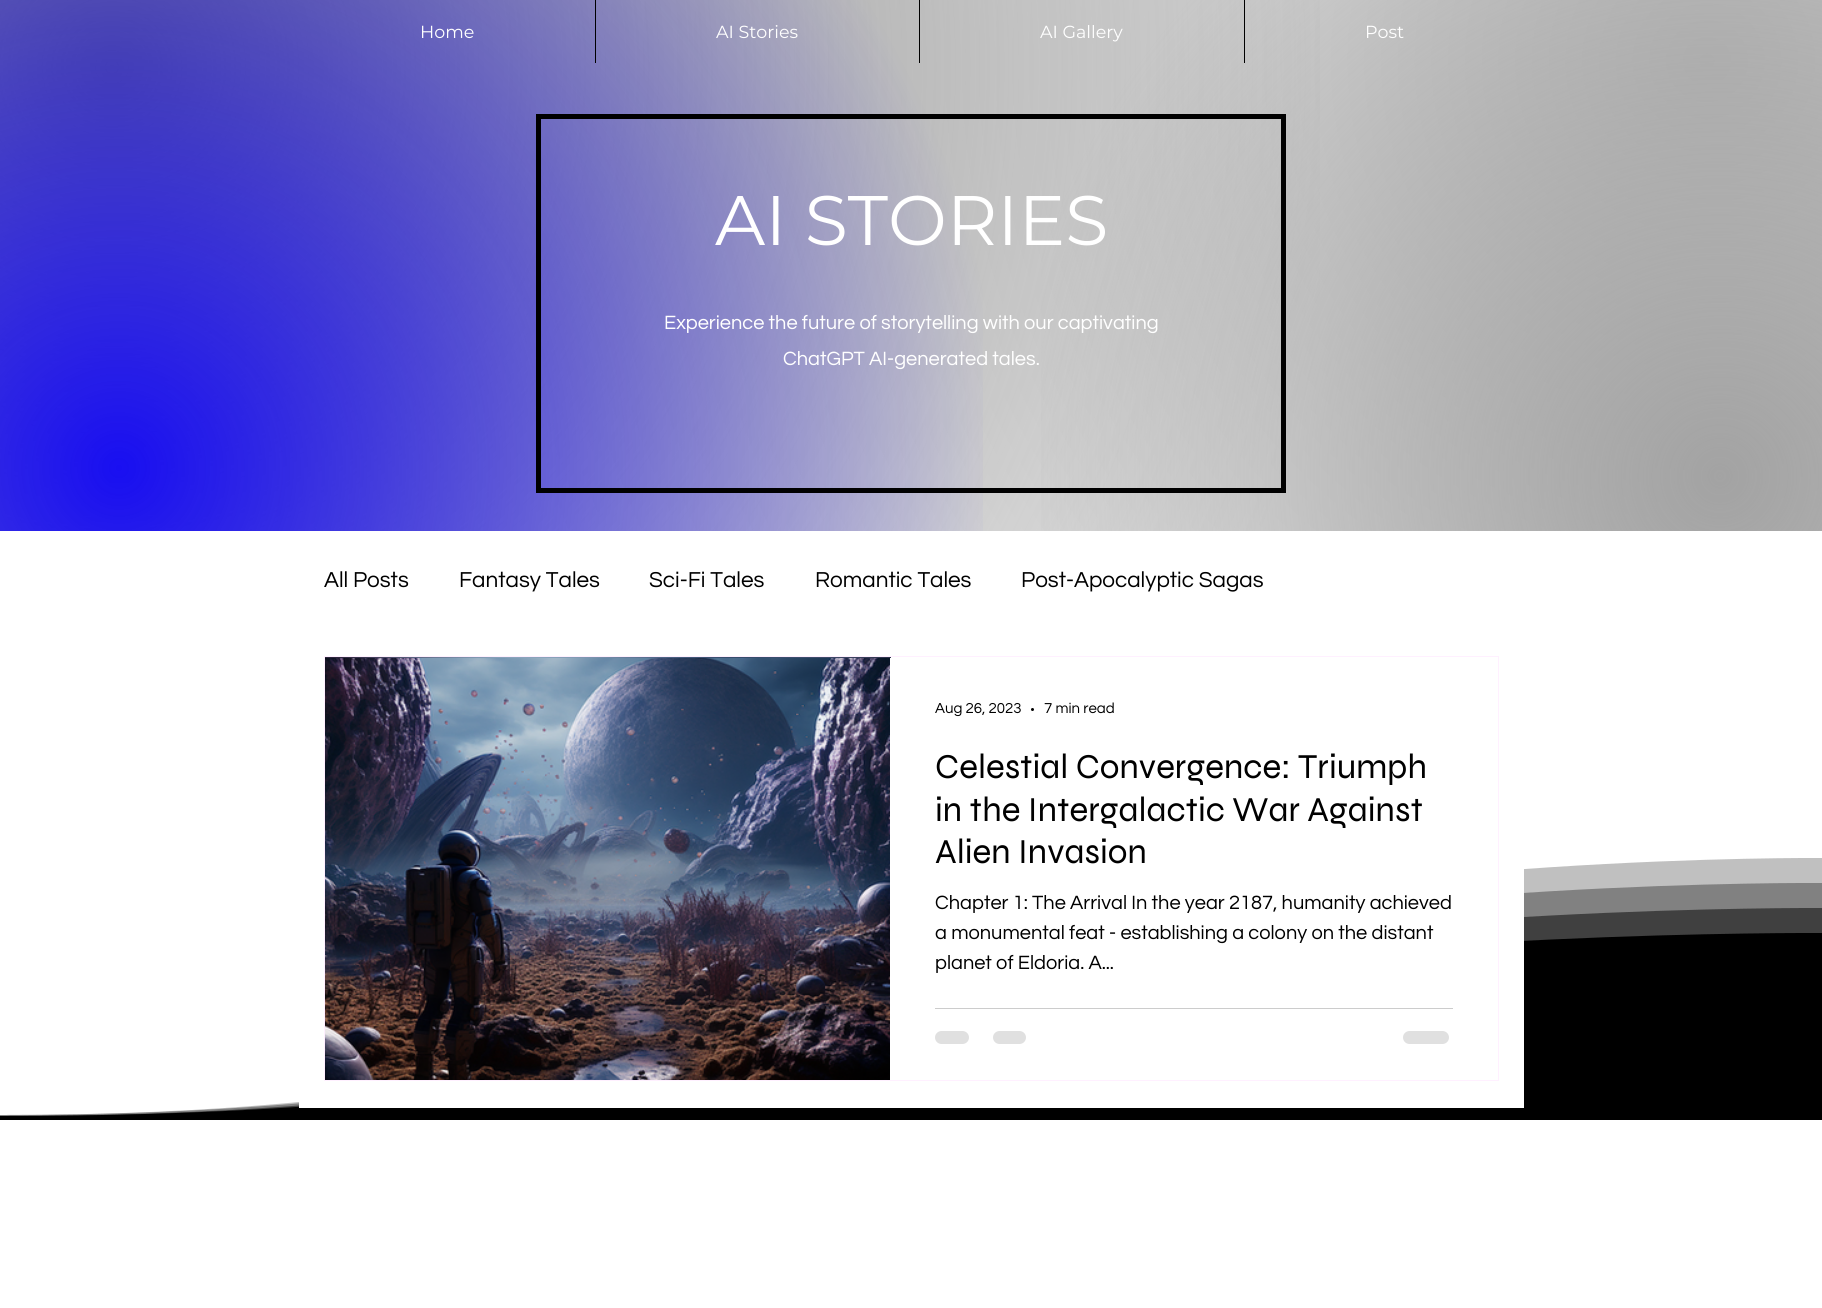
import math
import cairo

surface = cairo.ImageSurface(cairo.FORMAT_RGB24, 1822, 1308)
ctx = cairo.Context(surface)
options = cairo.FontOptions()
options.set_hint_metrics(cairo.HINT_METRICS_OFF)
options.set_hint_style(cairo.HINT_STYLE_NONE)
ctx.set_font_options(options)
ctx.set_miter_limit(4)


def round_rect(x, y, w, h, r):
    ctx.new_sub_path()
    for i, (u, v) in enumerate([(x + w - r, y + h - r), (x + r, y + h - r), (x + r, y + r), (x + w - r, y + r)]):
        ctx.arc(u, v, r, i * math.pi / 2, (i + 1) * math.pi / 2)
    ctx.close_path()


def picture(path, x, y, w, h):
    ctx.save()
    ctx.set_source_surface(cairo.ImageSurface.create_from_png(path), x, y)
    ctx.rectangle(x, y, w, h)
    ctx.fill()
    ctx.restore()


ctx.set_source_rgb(1, 1, 1)
ctx.paint()
gradient = cairo.RadialGradient(1707, 61, 0, 1707, 61, 1771)
gradient.add_color_stop_rgba(0, 0.71, 0.71, 0.71, 1)
gradient.add_color_stop_rgba(0.7, 1, 1, 1, 1)
ctx.set_source(gradient)
ctx.rectangle(509, 0, 1313, 531)
ctx.fill()
gradient = cairo.RadialGradient(112, 67, 0, 112, 67, 1772)
gradient.add_color_stop_rgba(0, 0.459, 0.459, 0.459, 1)
gradient.add_color_stop_rgba(0.7, 0.459, 0.459, 0.459, 0)
ctx.set_source(gradient)
ctx.rectangle(0, 0, 1320, 531)
ctx.fill()
gradient = cairo.RadialGradient(119, 468, 0, 119, 468, 1767)
gradient.add_color_stop_rgba(0, 0.09, 0.051, 0.949, 0.99)
gradient.add_color_stop_rgba(0.5, 0.09, 0.051, 0.949, 0)
ctx.set_source(gradient)
ctx.rectangle(0, 0, 983, 531)
ctx.fill()
gradient = cairo.RadialGradient(1720, 476, 0, 1720, 476, 1784)
gradient.add_color_stop_rgba(0, 0.639, 0.639, 0.639, 1)
gradient.add_color_stop_rgba(0.4, 0.639, 0.639, 0.639, 0)
ctx.set_source(gradient)
ctx.rectangle(1041, 0, 781, 531)
ctx.fill()
ctx.select_font_face("Montserrat")
ctx.set_font_size(17.5)
ctx.set_source_rgb(1, 1, 1)
ctx.move_to(420, 38)
ctx.show_text("Home")
ctx.set_source_rgb(0, 0, 0)
ctx.rectangle(595, 0, 1, 63)
ctx.fill()
ctx.set_source_rgb(1, 1, 1)
ctx.move_to(716, 38)
ctx.show_text("AI Stories")
ctx.set_source_rgb(0, 0, 0)
ctx.rectangle(919, 0, 1, 63)
ctx.fill()
ctx.set_source_rgb(1, 1, 1)
ctx.move_to(1040, 38)
ctx.show_text("AI Gallery")
ctx.set_source_rgb(0, 0, 0)
ctx.rectangle(1244, 0, 1, 63)
ctx.fill()
ctx.set_source_rgb(1, 1, 1)
ctx.move_to(1365, 38)
ctx.show_text("Post")
ctx.rectangle(538.5, 116.5, 745, 374)
ctx.set_source_rgb(0, 0, 0)
ctx.set_line_width(5)
ctx.stroke()
ctx.set_font_size(70)
ctx.set_source_rgb(1, 1, 1)
ctx.move_to(715, 245)
ctx.show_text("AI STORIES")
ctx.select_font_face("Questrial")
ctx.set_font_size(20)
ctx.move_to(664, 329)
ctx.show_text("Experience the future of storytelling with our captivating")
ctx.move_to(783, 365)
ctx.show_text("ChatGPT AI-generated tales.")
ctx.set_source_rgb(0.753, 0.753, 0.753)
ctx.new_path()
ctx.move_to(0, 1120)
ctx.line_to(0, 1115)
ctx.curve_to(432, 1115, 656, 1047, 1028, 945)
ctx.curve_to(1357, 854, 1822, 858, 1822, 858)
ctx.line_to(1822, 1120)
ctx.close_path()
ctx.fill()
ctx.set_source_rgba(0, 0, 0, 0.33)
ctx.new_path()
ctx.move_to(0, 1120)
ctx.line_to(0, 1115)
ctx.curve_to(432, 1115, 656, 1054, 1028, 962)
ctx.curve_to(1357, 879, 1822, 883, 1822, 883)
ctx.line_to(1822, 1120)
ctx.close_path()
ctx.fill()
ctx.set_source_rgb(0.251, 0.251, 0.251)
ctx.new_path()
ctx.move_to(0, 1120)
ctx.line_to(0, 1116)
ctx.curve_to(432, 1116, 656, 1061, 1028, 978)
ctx.curve_to(1357, 905, 1822, 908, 1822, 908)
ctx.line_to(1822, 1120)
ctx.close_path()
ctx.fill()
ctx.set_source_rgb(0, 0, 0)
ctx.new_path()
ctx.move_to(0, 1120)
ctx.line_to(0, 1116)
ctx.curve_to(432, 1116, 656, 1068, 1028, 995)
ctx.curve_to(1357, 930, 1822, 933, 1822, 933)
ctx.line_to(1822, 1120)
ctx.close_path()
ctx.fill()
ctx.set_source_rgb(1, 1, 1)
ctx.rectangle(299, 869, 1225, 239)
ctx.fill()
ctx.set_font_size(22.5)
ctx.set_source_rgb(0, 0, 0)
ctx.move_to(324, 587)
ctx.show_text("All Posts")
ctx.move_to(459, 587)
ctx.show_text("Fantasy Tales")
ctx.move_to(649, 587)
ctx.show_text("Sci-Fi Tales")
ctx.move_to(815, 587)
ctx.show_text("Romantic Tales")
ctx.move_to(1021, 587)
ctx.show_text("Post-Apocalyptic Sagas")
ctx.rectangle(324.5, 656.5, 1174, 424)
ctx.set_source_rgb(1, 0.941, 1)
ctx.set_line_width(1)
ctx.stroke()
picture("img1.png", 325, 657, 566, 1)
picture("img2.png", 325, 658, 565, 422)
ctx.set_font_size(15)
ctx.set_source_rgb(0, 0, 0)
ctx.move_to(935, 713)
ctx.show_text("Aug 26, 2023")
ctx.new_path()
ctx.arc(1032.5, 709.5, 1.5, 0, 2 * math.pi)
ctx.fill()
ctx.move_to(1044, 713)
ctx.show_text("7 min read")
ctx.select_font_face("Syne")
ctx.set_font_size(35)
ctx.move_to(935, 778)
ctx.show_text("Celestial Convergence: Triumph")
ctx.move_to(935, 821)
ctx.show_text("in the Intergalactic War Against")
ctx.move_to(935, 863)
ctx.show_text("Alien Invasion")
ctx.select_font_face("Questrial")
ctx.set_font_size(20)
ctx.move_to(935, 909)
ctx.show_text("Chapter 1: The Arrival In the year 2187, humanity achieved")
ctx.move_to(935, 939)
ctx.show_text("a monumental feat - establishing a colony on the distant")
ctx.move_to(935, 969)
ctx.show_text("planet of Eldoria. A...")
ctx.set_source_rgb(0.8, 0.8, 0.8)
ctx.rectangle(935, 1008, 518, 1)
ctx.fill()
ctx.set_source_rgb(0.878, 0.878, 0.878)
round_rect(935, 1031, 34, 13, 6.5)
ctx.fill()
round_rect(993, 1031, 33, 13, 6.5)
ctx.fill()
round_rect(1403, 1031, 46, 13, 6.5)
ctx.fill()
surface.write_to_png("page.png")
